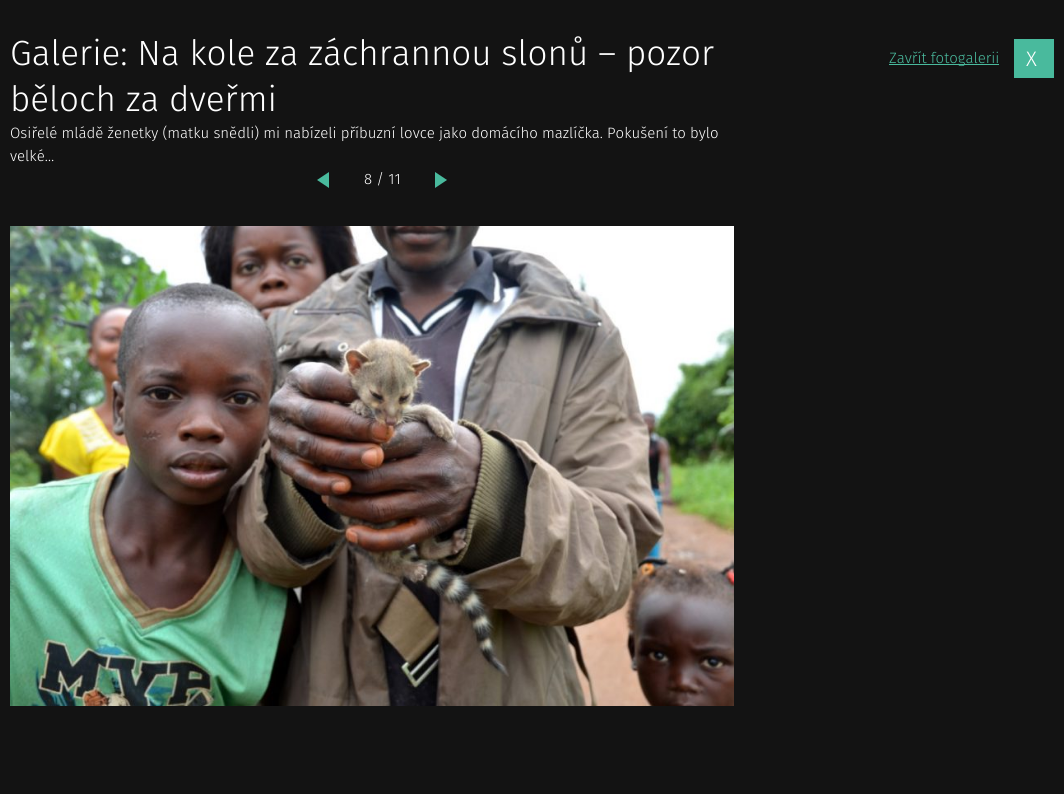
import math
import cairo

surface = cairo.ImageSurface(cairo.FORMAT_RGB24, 1064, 794)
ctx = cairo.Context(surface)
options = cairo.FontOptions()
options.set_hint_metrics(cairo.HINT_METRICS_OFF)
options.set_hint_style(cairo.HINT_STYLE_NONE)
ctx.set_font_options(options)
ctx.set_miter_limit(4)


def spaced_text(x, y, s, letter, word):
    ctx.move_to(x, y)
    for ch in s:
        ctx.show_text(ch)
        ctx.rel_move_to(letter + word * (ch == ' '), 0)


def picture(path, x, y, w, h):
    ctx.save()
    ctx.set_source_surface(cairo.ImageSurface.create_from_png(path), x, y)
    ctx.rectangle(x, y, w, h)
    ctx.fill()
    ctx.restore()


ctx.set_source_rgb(0.078, 0.078, 0.078)
ctx.paint()
ctx.select_font_face("Fira Sans Light")
ctx.set_font_size(35)
ctx.set_source_rgb(1, 1, 1)
ctx.move_to(10, 65)
ctx.show_text("Galerie: Na kole za záchrannou slonů – pozor")
ctx.move_to(10, 111)
ctx.show_text("běloch za dveřmi")
ctx.set_font_size(15)
ctx.move_to(10, 138)
ctx.show_text("Osiřelé mládě ženetky (matku snědli) mi nabízeli příbuzní lovce jako domácího mazlíčka. Pokušení to bylo")
ctx.move_to(10, 161)
ctx.show_text("velké…")
ctx.set_source_rgb(0.286, 0.729, 0.616)
ctx.new_path()
ctx.move_to(329, 172)
ctx.line_to(329, 188)
ctx.line_to(317, 180)
ctx.close_path()
ctx.fill()
ctx.set_source_rgb(1, 1, 1)
ctx.move_to(364, 184)
ctx.show_text("8 / 11")
ctx.set_source_rgb(0.286, 0.729, 0.616)
ctx.new_path()
ctx.move_to(435, 188)
ctx.line_to(435, 172)
ctx.line_to(447, 180)
ctx.close_path()
ctx.fill()
ctx.rectangle(889, 64, 110, 1)
ctx.fill()
ctx.move_to(889, 63)
ctx.show_text("Zavřít fotogalerii")
ctx.rectangle(1014, 39, 40, 39)
ctx.fill()
ctx.set_font_size(21)
ctx.set_source_rgb(1, 1, 1)
spaced_text(1026, 66, "X", 5, 0)
picture("img1.png", 10, 226, 724, 480)
surface.write_to_png("page.png")
